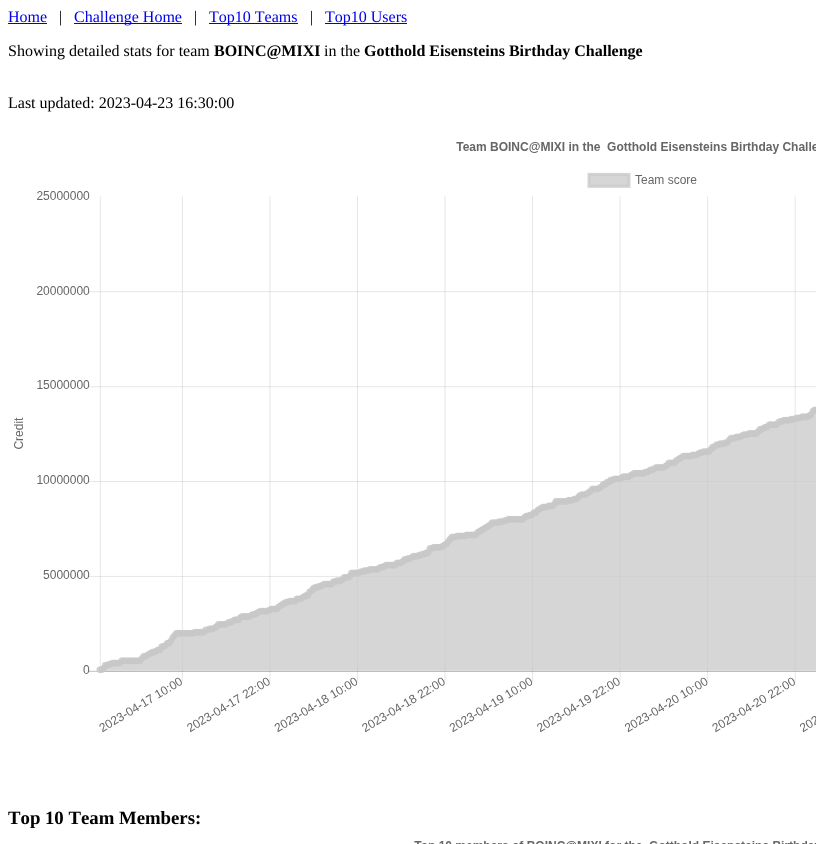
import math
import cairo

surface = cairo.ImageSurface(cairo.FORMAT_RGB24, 816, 844)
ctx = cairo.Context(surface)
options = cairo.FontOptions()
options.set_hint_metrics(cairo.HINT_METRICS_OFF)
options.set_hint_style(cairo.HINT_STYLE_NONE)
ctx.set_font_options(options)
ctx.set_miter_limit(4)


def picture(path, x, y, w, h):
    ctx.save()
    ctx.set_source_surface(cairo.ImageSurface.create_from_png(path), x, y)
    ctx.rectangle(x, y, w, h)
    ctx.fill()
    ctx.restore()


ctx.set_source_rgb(1, 1, 1)
ctx.paint()
ctx.select_font_face("Liberation Serif")
ctx.set_font_size(16)
ctx.set_source_rgb(0, 0, 0.933)
ctx.move_to(8, 22)
ctx.show_text("Home")
ctx.rectangle(8, 23, 39, 1)
ctx.fill()
ctx.set_source_rgb(0, 0, 0)
ctx.move_to(59, 22)
ctx.show_text("|")
ctx.set_source_rgb(0, 0, 0.933)
ctx.rectangle(74, 23, 108, 1)
ctx.fill()
ctx.move_to(74, 22)
ctx.show_text("Challenge Home")
ctx.set_source_rgb(0, 0, 0)
ctx.move_to(194, 22)
ctx.show_text("|")
ctx.set_source_rgb(0, 0, 0.933)
ctx.rectangle(209, 23, 89, 1)
ctx.fill()
ctx.move_to(209, 22)
ctx.show_text("Top10 Teams")
ctx.set_source_rgb(0, 0, 0)
ctx.move_to(310, 22)
ctx.show_text("|")
ctx.set_source_rgb(0, 0, 0.933)
ctx.rectangle(325, 23, 82, 1)
ctx.fill()
ctx.move_to(325, 22)
ctx.show_text("Top10 Users")
ctx.set_source_rgb(0, 0, 0)
ctx.move_to(8, 56)
ctx.show_text("Showing detailed stats for team")
ctx.select_font_face("Liberation Serif", cairo.FONT_SLANT_NORMAL, cairo.FONT_WEIGHT_BOLD)
ctx.move_to(214, 56)
ctx.show_text("BOINC@MIXI")
ctx.select_font_face("Liberation Serif")
ctx.move_to(324, 56)
ctx.show_text("in the")
ctx.select_font_face("Liberation Serif", cairo.FONT_SLANT_NORMAL, cairo.FONT_WEIGHT_BOLD)
ctx.move_to(364, 56)
ctx.show_text("Gotthold Eisensteins Birthday Challenge")
ctx.select_font_face("Liberation Serif")
ctx.move_to(8, 108)
ctx.show_text("Last updated: 2023-04-23 16:30:00")
picture("img1.png", 14, 142, 802, 591)
ctx.select_font_face("Liberation Serif", cairo.FONT_SLANT_NORMAL, cairo.FONT_WEIGHT_BOLD)
ctx.set_font_size(18.75)
ctx.move_to(8, 824)
ctx.show_text("Top 10 Team Members:")
picture("img2.png", 414, 841, 402, 3)
surface.write_to_png("page.png")
